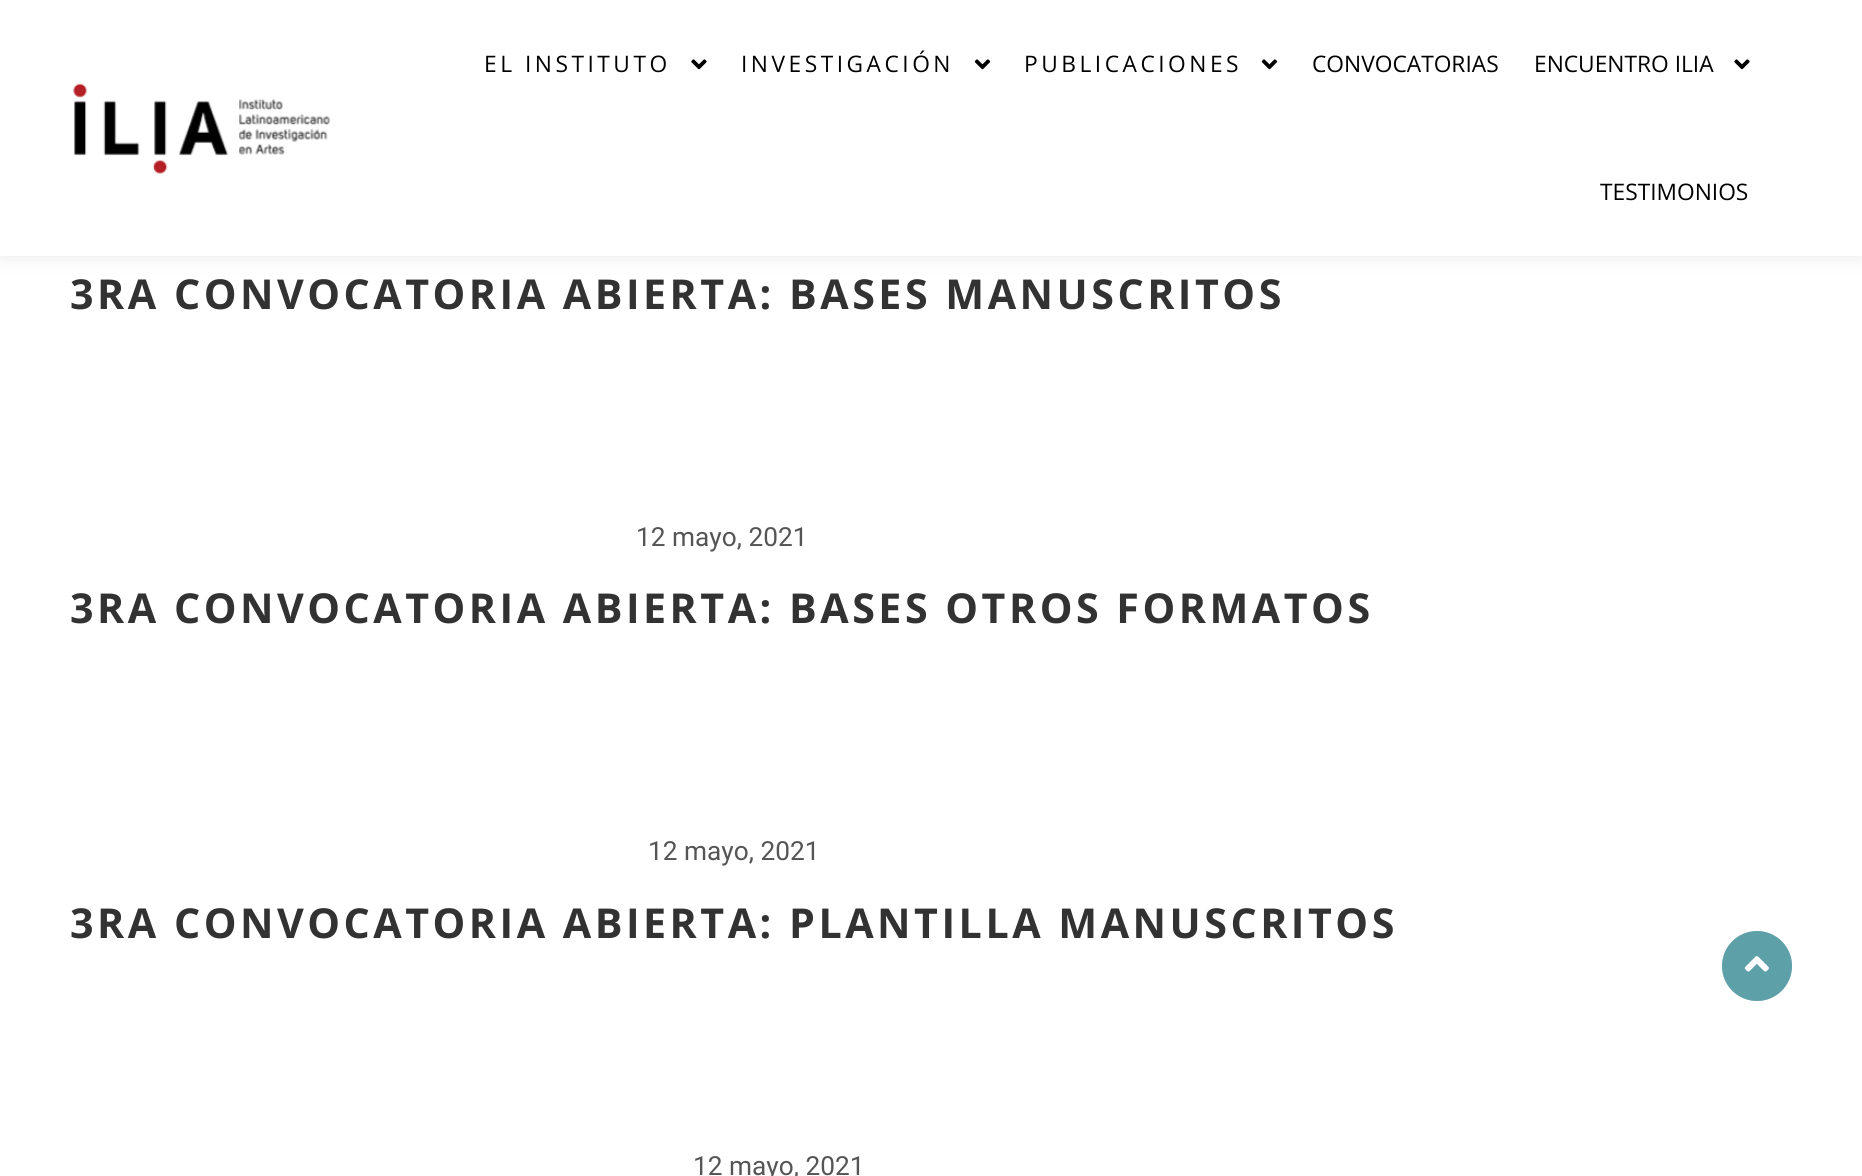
import math
import cairo

surface = cairo.ImageSurface(cairo.FORMAT_RGB24, 1862, 1176)
ctx = cairo.Context(surface)
options = cairo.FontOptions()
options.set_hint_metrics(cairo.HINT_METRICS_OFF)
options.set_hint_style(cairo.HINT_STYLE_NONE)
ctx.set_font_options(options)
ctx.set_miter_limit(4)


def spaced_text(x, y, s, letter, word):
    ctx.move_to(x, y)
    for ch in s:
        ctx.show_text(ch)
        ctx.rel_move_to(letter + word * (ch == ' '), 0)


def round_rect(x, y, w, h, r):
    ctx.new_sub_path()
    for i, (u, v) in enumerate([(x + w - r, y + h - r), (x + r, y + h - r), (x + r, y + r), (x + w - r, y + r)]):
        ctx.arc(u, v, r, i * math.pi / 2, (i + 1) * math.pi / 2)
    ctx.close_path()


def shadow(x, y, w, h, r, blur, alpha):
    ctx.push_group_with_content(cairo.CONTENT_ALPHA)
    ctx.set_operator(cairo.OPERATOR_SOURCE)
    for i in range(15, -16, -2):
        e = blur * i / 6
        if min(w, h) + 2 * e > 0:
            ctx.set_source_rgba(0, 0, 0, alpha * math.erfc((i - 1) / 8.5) / 2)
            round_rect(x - e, y - e, w + 2 * e, h + 2 * e, max(0, min(r + e + blur * .6, min(w, h) / 2 + e)))
            ctx.fill()
    ctx.mask(ctx.pop_group())


def picture(path, x, y, w, h):
    ctx.save()
    ctx.set_source_surface(cairo.ImageSurface.create_from_png(path), x, y)
    ctx.rectangle(x, y, w, h)
    ctx.fill()
    ctx.restore()


ctx.set_source_rgb(1, 1, 1)
ctx.paint()
ctx.set_source_rgb(0, 0, 0)
shadow(0, 0, 1862, 256, 0, 10.5, 0.09)
ctx.set_source_rgb(1, 1, 1)
ctx.rectangle(0, 0, 1862, 256)
ctx.fill()
picture("img1.png", 73, 83, 257, 92)
ctx.select_font_face("Open Sans")
ctx.set_font_size(22.75)
ctx.set_source_rgb(0, 0, 0)
spaced_text(484, 72, "EL INSTITUTO", 3.5, 0)
picture("img2.png", 691, 59, 16, 11)
spaced_text(741, 72, "INVESTIGACIÓN", 3.5, 0)
picture("img3.png", 974, 59, 17, 11)
spaced_text(1024, 72, "PUBLICACIONES", 3.5, 0)
picture("img3.png", 1261, 59, 17, 11)
ctx.move_to(1312, 72)
ctx.show_text("CONVOCATORIAS")
ctx.move_to(1534, 72)
ctx.show_text("ENCUENTRO ILIA")
picture("img2.png", 1734, 59, 16, 11)
ctx.move_to(1600, 200)
ctx.show_text("TESTIMONIOS")
ctx.select_font_face("Open Sans", cairo.FONT_SLANT_NORMAL, cairo.FONT_WEIGHT_BOLD)
ctx.set_font_size(41.2)
ctx.set_source_rgb(0.196, 0.196, 0.196)
spaced_text(70, 309, "3RA CONVOCATORIA ABIERTA: BASES MANUSCRITOS", 3.5, 0)
ctx.select_font_face("Roboto")
ctx.set_font_size(26.25)
ctx.set_source_rgb(0.333, 0.333, 0.333)
ctx.move_to(636, 546)
ctx.show_text("12 mayo, 2021")
ctx.select_font_face("Open Sans", cairo.FONT_SLANT_NORMAL, cairo.FONT_WEIGHT_BOLD)
ctx.set_font_size(41.2)
ctx.set_source_rgb(0.196, 0.196, 0.196)
spaced_text(70, 623, "3RA CONVOCATORIA ABIERTA: BASES OTROS FORMATOS", 3.5, 0)
ctx.select_font_face("Roboto")
ctx.set_font_size(26.25)
ctx.set_source_rgb(0.333, 0.333, 0.333)
ctx.move_to(648, 860)
ctx.show_text("12 mayo, 2021")
ctx.select_font_face("Open Sans", cairo.FONT_SLANT_NORMAL, cairo.FONT_WEIGHT_BOLD)
ctx.set_font_size(41.2)
ctx.set_source_rgb(0.196, 0.196, 0.196)
spaced_text(70, 938, "3RA CONVOCATORIA ABIERTA: PLANTILLA MANUSCRITOS", 3.5, 0)
ctx.select_font_face("Roboto")
ctx.set_font_size(26.25)
ctx.set_source_rgb(0.333, 0.333, 0.333)
ctx.move_to(693, 1175)
ctx.show_text("12 mayo, 2021")
ctx.set_source_rgb(0.369, 0.627, 0.663)
ctx.new_path()
ctx.arc(1757, 966, 35, 0, 2 * math.pi)
ctx.fill()
ctx.set_source_rgba(0.369, 0.627, 0.663, 0.4)
ctx.arc(1757, 966, 35, 0, 2 * math.pi)
ctx.fill()
picture("img4.png", 1744, 956, 25, 16)
surface.write_to_png("page.png")
